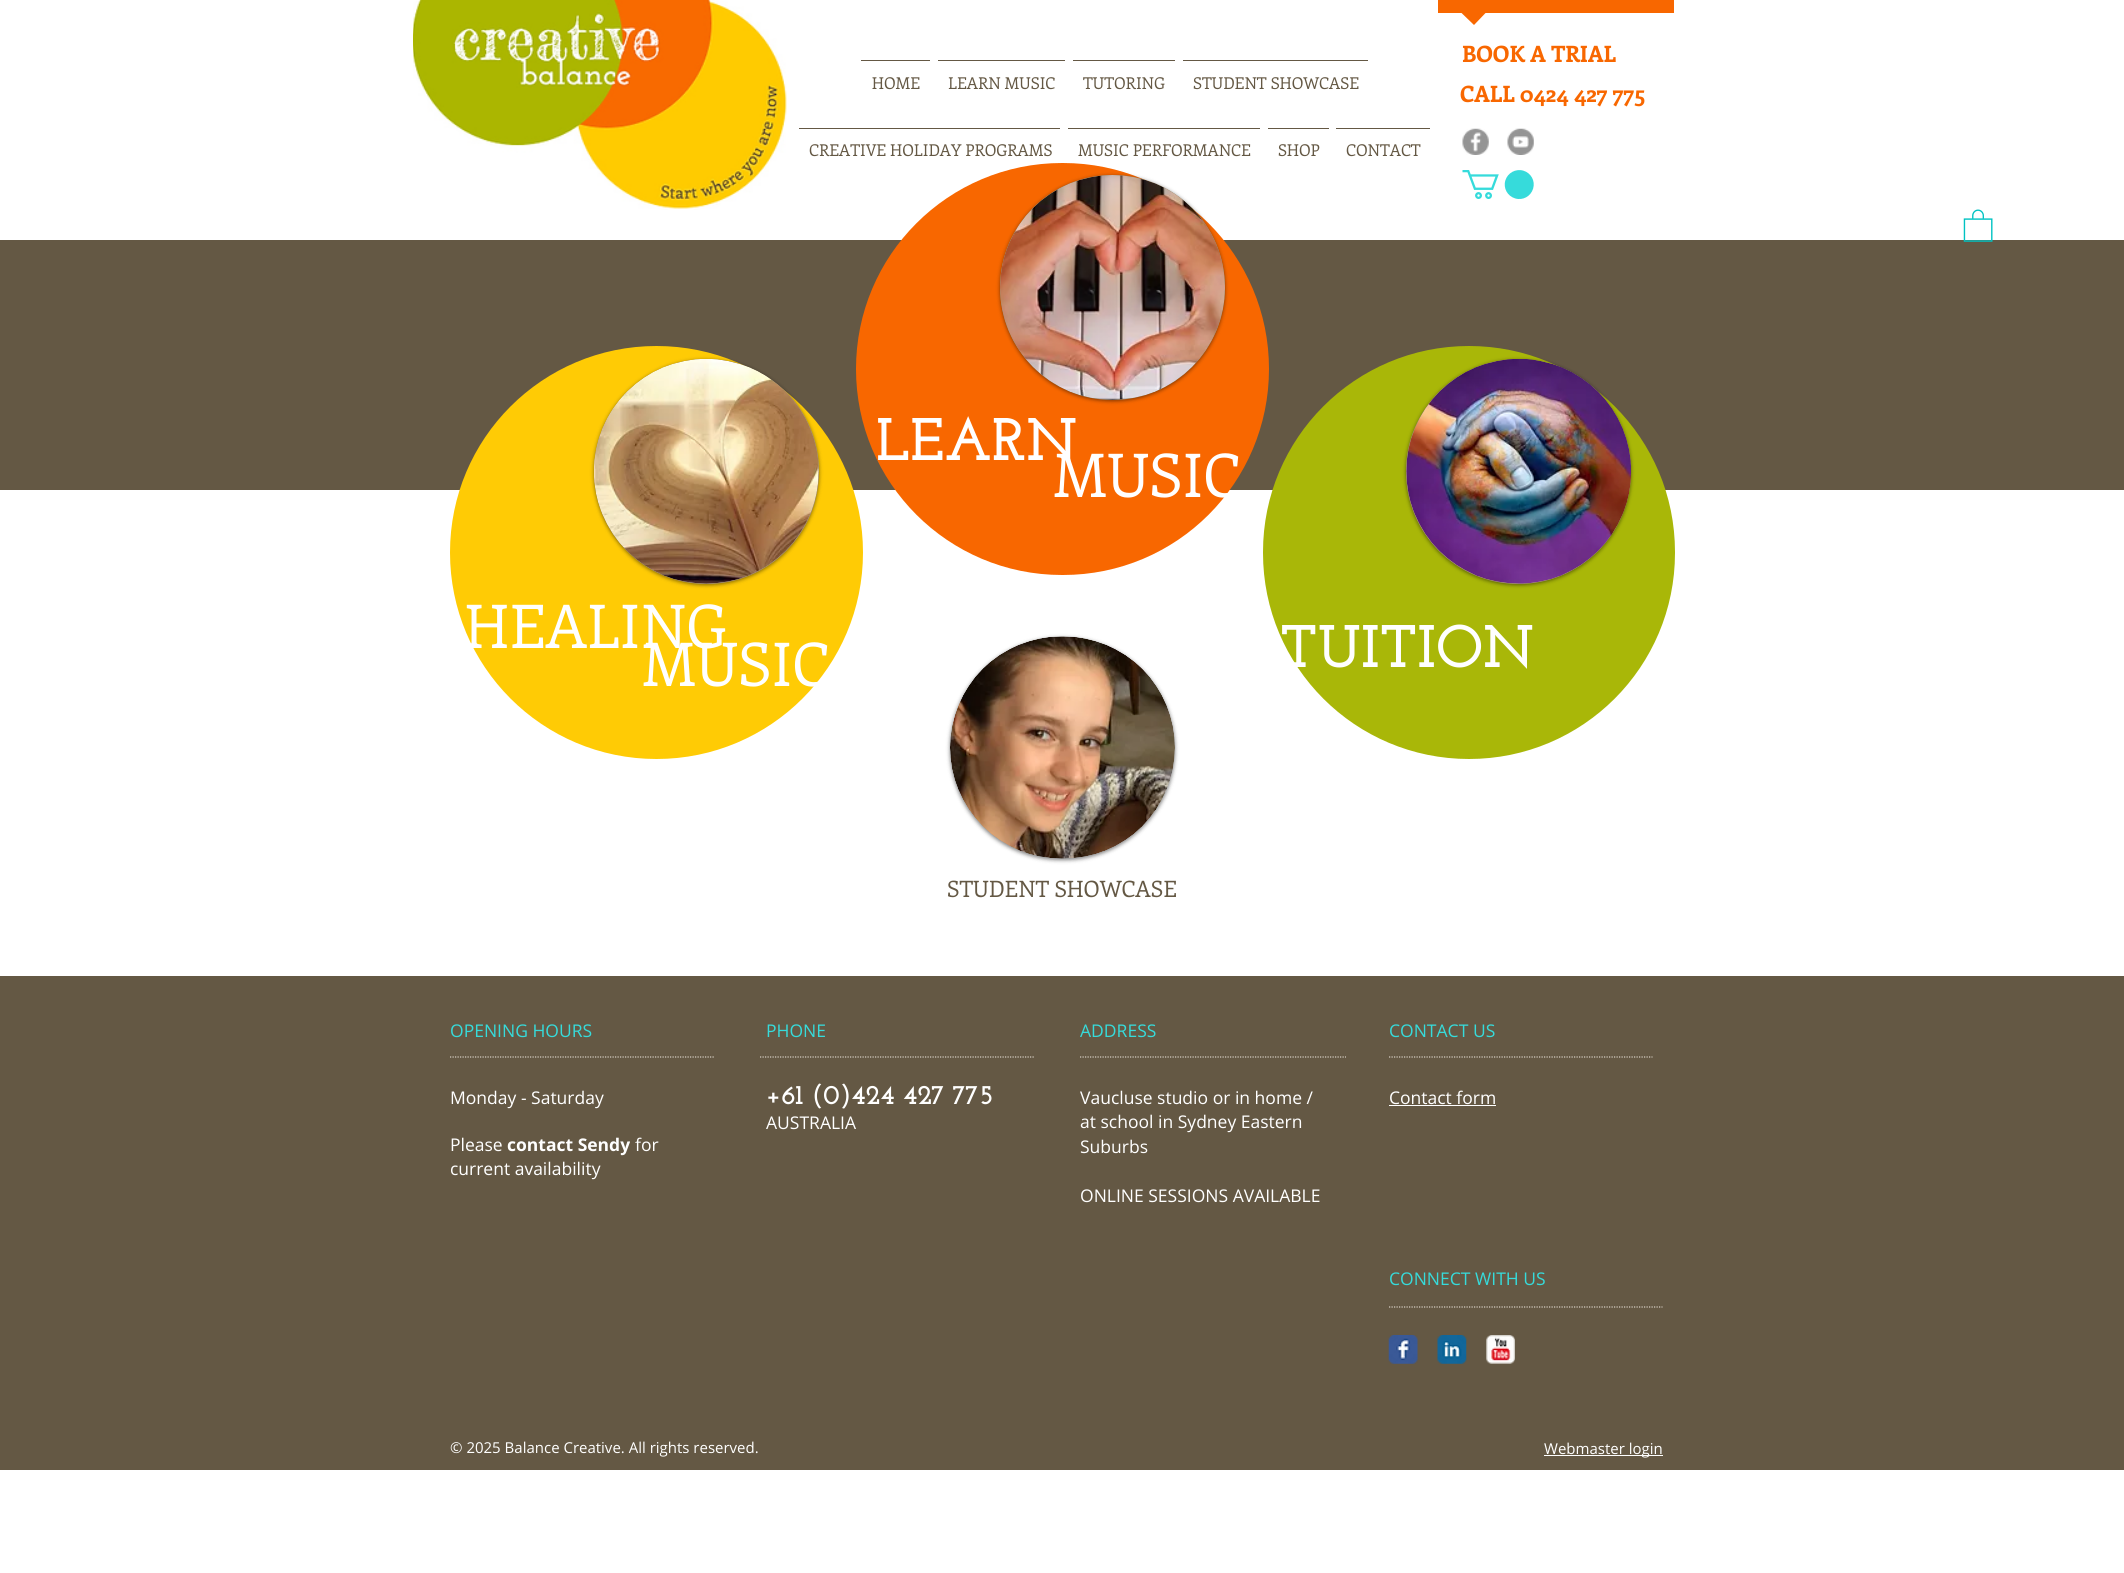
import math
import cairo

surface = cairo.ImageSurface(cairo.FORMAT_RGB24, 2124, 1573)
ctx = cairo.Context(surface)
options = cairo.FontOptions()
options.set_hint_metrics(cairo.HINT_METRICS_OFF)
options.set_hint_style(cairo.HINT_STYLE_NONE)
ctx.set_font_options(options)
ctx.set_miter_limit(4)


def round_rect(x, y, w, h, r):
    ctx.new_sub_path()
    for i, (u, v) in enumerate([(x + w - r, y + h - r), (x + r, y + h - r), (x + r, y + r), (x + w - r, y + r)]):
        ctx.arc(u, v, r, i * math.pi / 2, (i + 1) * math.pi / 2)
    ctx.close_path()


def shadow(x, y, w, h, r, blur, alpha):
    ctx.push_group_with_content(cairo.CONTENT_ALPHA)
    ctx.set_operator(cairo.OPERATOR_SOURCE)
    for i in range(15, -16, -2):
        e = blur * i / 6
        if min(w, h) + 2 * e > 0:
            ctx.set_source_rgba(0, 0, 0, alpha * math.erfc((i - 1) / 8.5) / 2)
            round_rect(x - e, y - e, w + 2 * e, h + 2 * e, max(0, min(r + e + blur * .6, min(w, h) / 2 + e)))
            ctx.fill()
    ctx.mask(ctx.pop_group())


def picture(path, x, y, w, h):
    ctx.save()
    ctx.set_source_surface(cairo.ImageSurface.create_from_png(path), x, y)
    ctx.rectangle(x, y, w, h)
    ctx.fill()
    ctx.restore()


ctx.set_source_rgb(1, 1, 1)
ctx.paint()
picture("img1.png", 413, 0, 374, 210)
ctx.set_source_rgb(0.969, 0.404, 0)
ctx.rectangle(1438, 0, 236, 13)
ctx.fill()
ctx.new_path()
ctx.move_to(1461, 12.5)
ctx.line_to(1486, 12.5)
ctx.line_to(1474, 25)
ctx.close_path()
ctx.fill()
ctx.select_font_face("Enriqueta", cairo.FONT_SLANT_NORMAL, cairo.FONT_WEIGHT_BOLD)
ctx.set_font_size(22.5)
ctx.move_to(1462, 62)
ctx.show_text("BOOK A TRIAL")
ctx.set_source_rgb(0.392, 0.345, 0.267)
ctx.rectangle(861, 60, 69, 1)
ctx.fill()
ctx.select_font_face("Enriqueta")
ctx.set_font_size(16.25)
ctx.move_to(872, 89)
ctx.show_text("HOME")
ctx.rectangle(938, 60, 127, 1)
ctx.fill()
ctx.move_to(948, 89)
ctx.show_text("LEARN MUSIC")
ctx.rectangle(1073, 60, 102, 1)
ctx.fill()
ctx.move_to(1083, 89)
ctx.show_text("TUTORING")
ctx.rectangle(1183, 60, 185, 1)
ctx.fill()
ctx.move_to(1193, 89)
ctx.show_text("STUDENT SHOWCASE")
ctx.select_font_face("Enriqueta", cairo.FONT_SLANT_NORMAL, cairo.FONT_WEIGHT_BOLD)
ctx.set_font_size(22.5)
ctx.set_source_rgb(0.969, 0.404, 0)
ctx.move_to(1460, 102)
ctx.show_text("CALL 0424 427 775")
ctx.set_source_rgb(0.392, 0.345, 0.267)
ctx.rectangle(799, 128, 261, 1)
ctx.fill()
ctx.select_font_face("Enriqueta")
ctx.set_font_size(16.25)
ctx.move_to(809, 156)
ctx.show_text("CREATIVE HOLIDAY PROGRAMS")
ctx.rectangle(1068, 128, 192, 1)
ctx.fill()
ctx.move_to(1078, 156)
ctx.show_text("MUSIC PERFORMANCE")
ctx.rectangle(1268, 128, 61, 1)
ctx.fill()
ctx.move_to(1278, 156)
ctx.show_text("SHOP")
ctx.rectangle(1336, 128, 94, 1)
ctx.fill()
ctx.move_to(1346, 156)
ctx.show_text("CONTACT")
picture("img2.png", 1462, 128, 27, 27)
picture("img3.png", 1507, 128, 27, 27)
picture("img4.png", 1462, 170, 72, 29)
ctx.rectangle(0, 240, 2124, 250)
ctx.fill()
picture("img5.png", 1963, 209, 30, 33)
ctx.set_source_rgb(0.969, 0.404, 0)
round_rect(856, 163, 413, 412, 206)
ctx.fill()
ctx.set_source_rgb(0, 0, 0)
shadow(1000, 176, 225, 225, 112.5, 2, 0.5)
ctx.set_source_rgb(0.651, 0.576, 0.463)
ctx.arc(1112.5, 287.5, 112.5, 0, 2 * math.pi)
ctx.fill()
picture("img6.png", 1000, 175, 225, 225)
ctx.select_font_face("Josefin Slab", cairo.FONT_SLANT_NORMAL, cairo.FONT_WEIGHT_BOLD)
ctx.set_font_size(60)
ctx.set_source_rgb(1, 1, 1)
ctx.move_to(876, 460)
ctx.show_text("LEARN")
ctx.select_font_face("Enriqueta")
ctx.move_to(1053, 497)
ctx.show_text("MUSIC")
ctx.set_source_rgb(1, 0.796, 0.02)
ctx.new_path()
ctx.arc(656.5, 552.5, 204.5, 0, 2 * math.pi)
ctx.fill_preserve()
ctx.set_line_width(4)
ctx.stroke()
ctx.set_source_rgb(0, 0, 0)
shadow(594, 360, 225, 225, 112.5, 2, 0.5)
ctx.set_source_rgb(0.651, 0.576, 0.463)
ctx.arc(706.5, 471.5, 112.5, 0, 2 * math.pi)
ctx.fill()
picture("img7.png", 594, 359, 225, 225)
ctx.set_source_rgb(1, 1, 1)
ctx.move_to(465, 648)
ctx.show_text("HEALING")
ctx.move_to(642, 686)
ctx.show_text("MUSIC")
ctx.set_source_rgb(0, 0, 0)
shadow(950, 638, 225, 222, 111, 2, 0.5)
picture("img8.png", 950, 636, 225, 223)
ctx.set_source_rgb(0.663, 0.718, 0.035)
round_rect(1265, 348, 408, 409, 204)
ctx.fill_preserve()
ctx.stroke()
ctx.set_source_rgb(0, 0, 0)
shadow(1406, 360, 225, 225, 112.5, 2, 0.5)
ctx.set_source_rgb(0.651, 0.576, 0.463)
ctx.arc(1518.5, 471.5, 112.5, 0, 2 * math.pi)
ctx.fill()
picture("img9.png", 1406, 359, 225, 225)
ctx.select_font_face("Josefin Slab", cairo.FONT_SLANT_NORMAL, cairo.FONT_WEIGHT_BOLD)
ctx.set_source_rgb(1, 1, 1)
ctx.move_to(1280, 667)
ctx.show_text("TUITION")
ctx.select_font_face("Enriqueta")
ctx.set_font_size(22.5)
ctx.set_source_rgb(0.392, 0.345, 0.267)
ctx.move_to(947, 897)
ctx.show_text("STUDENT SHOWCASE")
ctx.rectangle(0, 976, 2124, 494)
ctx.fill()
ctx.select_font_face("Open Sans")
ctx.set_font_size(17.5)
ctx.set_source_rgb(0.212, 0.859, 0.859)
ctx.move_to(450, 1037)
ctx.show_text("OPENING HOURS")
ctx.move_to(766, 1037)
ctx.show_text("PHONE")
ctx.move_to(1080, 1037)
ctx.show_text("ADDRESS")
ctx.move_to(1389, 1037)
ctx.show_text("CONTACT US")
ctx.new_path()
ctx.move_to(450, 1057)
ctx.line_to(714, 1057)
ctx.set_source_rgb(0.847, 0.82, 0.776)
ctx.set_line_width(1.2)
ctx.set_dash([1.25, 1.25])
ctx.stroke()
ctx.new_path()
ctx.move_to(760, 1057)
ctx.line_to(1034, 1057)
ctx.stroke()
ctx.new_path()
ctx.move_to(1080, 1057)
ctx.line_to(1346, 1057)
ctx.stroke()
ctx.new_path()
ctx.move_to(1389, 1057)
ctx.line_to(1652.5, 1057)
ctx.stroke()
ctx.set_source_rgb(1, 1, 1)
ctx.move_to(450, 1104)
ctx.show_text("Monday - Saturday")
ctx.move_to(450, 1151)
ctx.show_text("Please")
ctx.select_font_face("Open Sans", cairo.FONT_SLANT_NORMAL, cairo.FONT_WEIGHT_BOLD)
ctx.move_to(507, 1151)
ctx.show_text("contact Sendy")
ctx.select_font_face("Open Sans")
ctx.move_to(635, 1151)
ctx.show_text("for")
ctx.move_to(450, 1175)
ctx.show_text("current availability")
ctx.select_font_face("Josefin Slab", cairo.FONT_SLANT_NORMAL, cairo.FONT_WEIGHT_BOLD)
ctx.set_font_size(27.5)
ctx.move_to(766, 1104)
ctx.show_text("+61 (0)424 427 775")
ctx.select_font_face("Open Sans")
ctx.set_font_size(17.5)
ctx.move_to(766, 1129)
ctx.show_text("AUSTRALIA")
ctx.move_to(1080, 1104)
ctx.show_text("Vaucluse studio or in home /")
ctx.move_to(1080, 1128)
ctx.show_text("at school in Sydney Eastern")
ctx.move_to(1080, 1153)
ctx.show_text("Suburbs")
ctx.move_to(1080, 1202)
ctx.show_text("ONLINE SESSIONS AVAILABLE")
ctx.move_to(1389, 1104)
ctx.show_text("Contact form")
ctx.rectangle(1389, 1105, 107, 1)
ctx.fill()
ctx.set_source_rgb(0.212, 0.859, 0.859)
ctx.move_to(1389, 1285)
ctx.show_text("CONNECT WITH US")
ctx.new_path()
ctx.move_to(1389, 1307)
ctx.line_to(1662.5, 1307)
ctx.set_source_rgb(0.847, 0.82, 0.776)
ctx.stroke()
picture("img10.png", 1388, 1335, 30, 29)
picture("img11.png", 1437, 1335, 30, 29)
picture("img12.png", 1486, 1335, 29, 29)
ctx.set_font_size(15)
ctx.set_source_rgb(1, 1, 1)
ctx.move_to(450, 1453)
ctx.show_text("© 2025 Balance Creative. All rights reserved.")
ctx.rectangle(1544, 1455, 119, 1)
ctx.fill()
ctx.move_to(1544, 1454)
ctx.show_text("Webmaster login")
surface.write_to_png("page.png")
